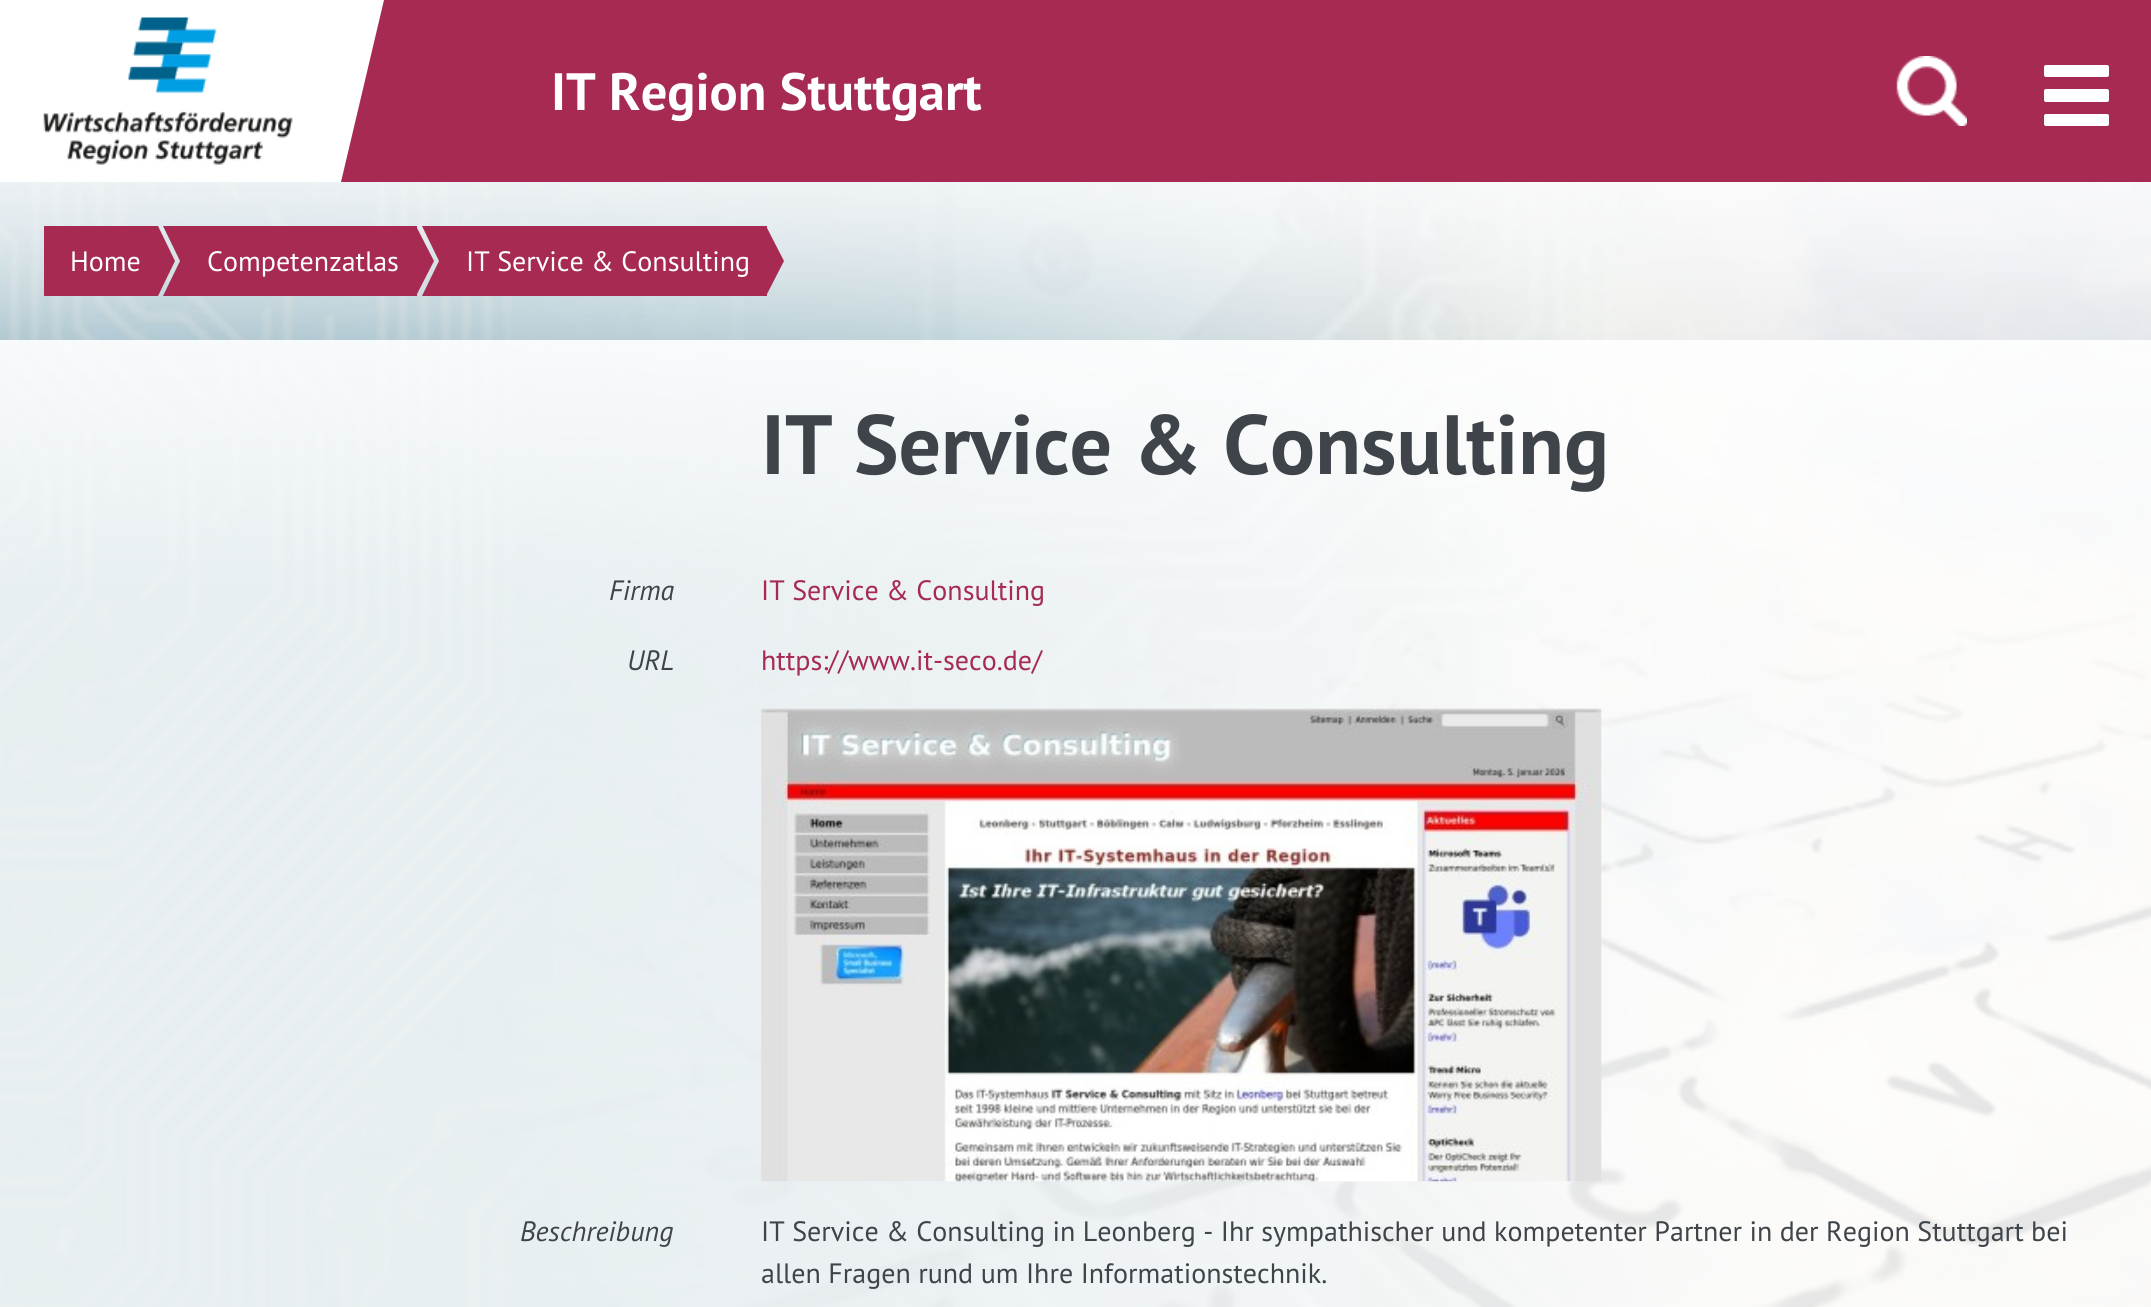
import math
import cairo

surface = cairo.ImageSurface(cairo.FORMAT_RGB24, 2151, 1307)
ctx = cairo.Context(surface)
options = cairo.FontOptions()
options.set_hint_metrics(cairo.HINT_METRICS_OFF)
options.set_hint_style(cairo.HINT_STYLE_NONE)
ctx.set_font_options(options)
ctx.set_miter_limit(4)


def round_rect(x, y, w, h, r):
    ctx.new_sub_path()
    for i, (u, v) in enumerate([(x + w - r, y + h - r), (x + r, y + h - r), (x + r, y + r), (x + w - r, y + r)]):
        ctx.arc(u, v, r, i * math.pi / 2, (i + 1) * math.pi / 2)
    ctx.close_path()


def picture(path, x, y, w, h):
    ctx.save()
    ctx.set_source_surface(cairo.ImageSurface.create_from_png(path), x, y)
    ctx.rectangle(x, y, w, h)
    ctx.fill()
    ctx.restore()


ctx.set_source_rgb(1, 1, 1)
ctx.paint()
picture("img1.png", 43, 17, 250, 148)
ctx.set_source_rgb(0.651, 0.165, 0.322)
ctx.rectangle(341, 0, 1810, 182)
ctx.fill()
ctx.set_source_rgb(1, 1, 1)
ctx.new_path()
ctx.move_to(331, 0)
ctx.line_to(384, 0)
ctx.line_to(341, 182)
ctx.line_to(289, 182)
ctx.close_path()
ctx.fill()
ctx.select_font_face("PT Sans", cairo.FONT_SLANT_NORMAL, cairo.FONT_WEIGHT_BOLD)
ctx.set_font_size(52.5)
ctx.move_to(551, 110)
ctx.show_text("IT Region Stuttgart")
picture("img2.png", 1896, 56, 71, 70)
round_rect(2044, 89, 65, 13, 2)
ctx.fill()
round_rect(2044, 65, 65, 12, 2)
ctx.fill()
round_rect(2044, 114, 65, 12, 2)
ctx.fill()
picture("img3.png", 0, 182, 2151, 1125)
ctx.set_source_rgb(0.651, 0.165, 0.322)
ctx.rectangle(44, 226, 114, 70)
ctx.fill()
ctx.select_font_face("PT Sans")
ctx.set_font_size(28)
ctx.set_source_rgb(1, 1, 1)
ctx.move_to(70, 271)
ctx.show_text("Home")
ctx.set_source_rgb(0.651, 0.165, 0.322)
ctx.new_path()
ctx.move_to(158, 296)
ctx.line_to(158, 226)
ctx.line_to(175, 261)
ctx.close_path()
ctx.fill()
ctx.rectangle(198, 226, 219, 70)
ctx.fill()
ctx.new_path()
ctx.move_to(163, 226)
ctx.line_to(198, 226)
ctx.line_to(180, 261)
ctx.close_path()
ctx.fill()
ctx.rectangle(180, 226, 18, 70)
ctx.fill()
ctx.new_path()
ctx.move_to(198, 296)
ctx.line_to(163, 296)
ctx.line_to(180, 261)
ctx.close_path()
ctx.fill()
ctx.set_source_rgb(1, 1, 1)
ctx.move_to(207, 271)
ctx.show_text("Competenzatlas")
ctx.set_source_rgb(0.651, 0.165, 0.322)
ctx.new_path()
ctx.move_to(416, 296)
ctx.line_to(416, 226)
ctx.line_to(434, 261)
ctx.close_path()
ctx.fill()
ctx.rectangle(457, 226, 310, 70)
ctx.fill()
ctx.new_path()
ctx.move_to(422, 226)
ctx.line_to(457, 226)
ctx.line_to(439, 261)
ctx.close_path()
ctx.fill()
ctx.rectangle(439, 226, 18, 70)
ctx.fill()
ctx.new_path()
ctx.move_to(457, 296)
ctx.line_to(422, 296)
ctx.line_to(439, 261)
ctx.close_path()
ctx.fill()
ctx.set_source_rgb(1, 1, 1)
ctx.move_to(466, 271)
ctx.show_text("IT Service & Consulting")
ctx.set_source_rgb(0.651, 0.165, 0.322)
ctx.new_path()
ctx.move_to(766, 296)
ctx.line_to(766, 226)
ctx.line_to(784, 261)
ctx.close_path()
ctx.fill()
ctx.set_source_rgba(1, 1, 1, 0.9)
ctx.rectangle(0, 340, 2151, 967)
ctx.fill()
ctx.select_font_face("PT Sans", cairo.FONT_SLANT_NORMAL, cairo.FONT_WEIGHT_BOLD)
ctx.set_font_size(84)
ctx.set_source_rgb(0.247, 0.267, 0.29)
ctx.move_to(761, 474)
ctx.show_text("IT Service & Consulting")
ctx.select_font_face("PT Sans", cairo.FONT_SLANT_ITALIC)
ctx.set_font_size(28)
ctx.move_to(609, 600)
ctx.show_text("Firma")
ctx.select_font_face("PT Sans")
ctx.set_source_rgb(0.651, 0.165, 0.322)
ctx.move_to(761, 600)
ctx.show_text("IT Service & Consulting")
ctx.select_font_face("PT Sans", cairo.FONT_SLANT_ITALIC)
ctx.set_source_rgb(0.247, 0.267, 0.29)
ctx.move_to(627, 670)
ctx.show_text("URL")
ctx.select_font_face("PT Sans")
ctx.set_source_rgb(0.651, 0.165, 0.322)
ctx.move_to(761, 670)
ctx.show_text("https://www.it-seco.de/")
picture("img4.png", 761, 708, 841, 474)
ctx.select_font_face("PT Sans", cairo.FONT_SLANT_ITALIC)
ctx.set_source_rgb(0.247, 0.267, 0.29)
ctx.move_to(520, 1241)
ctx.show_text("Beschreibung")
ctx.select_font_face("PT Sans")
ctx.move_to(761, 1241)
ctx.show_text("IT Service & Consulting in Leonberg - Ihr sympathischer und kompetenter Partner in der Region Stuttgart bei")
ctx.move_to(761, 1283)
ctx.show_text("allen Fragen rund um Ihre Informationstechnik.")
surface.write_to_png("page.png")
